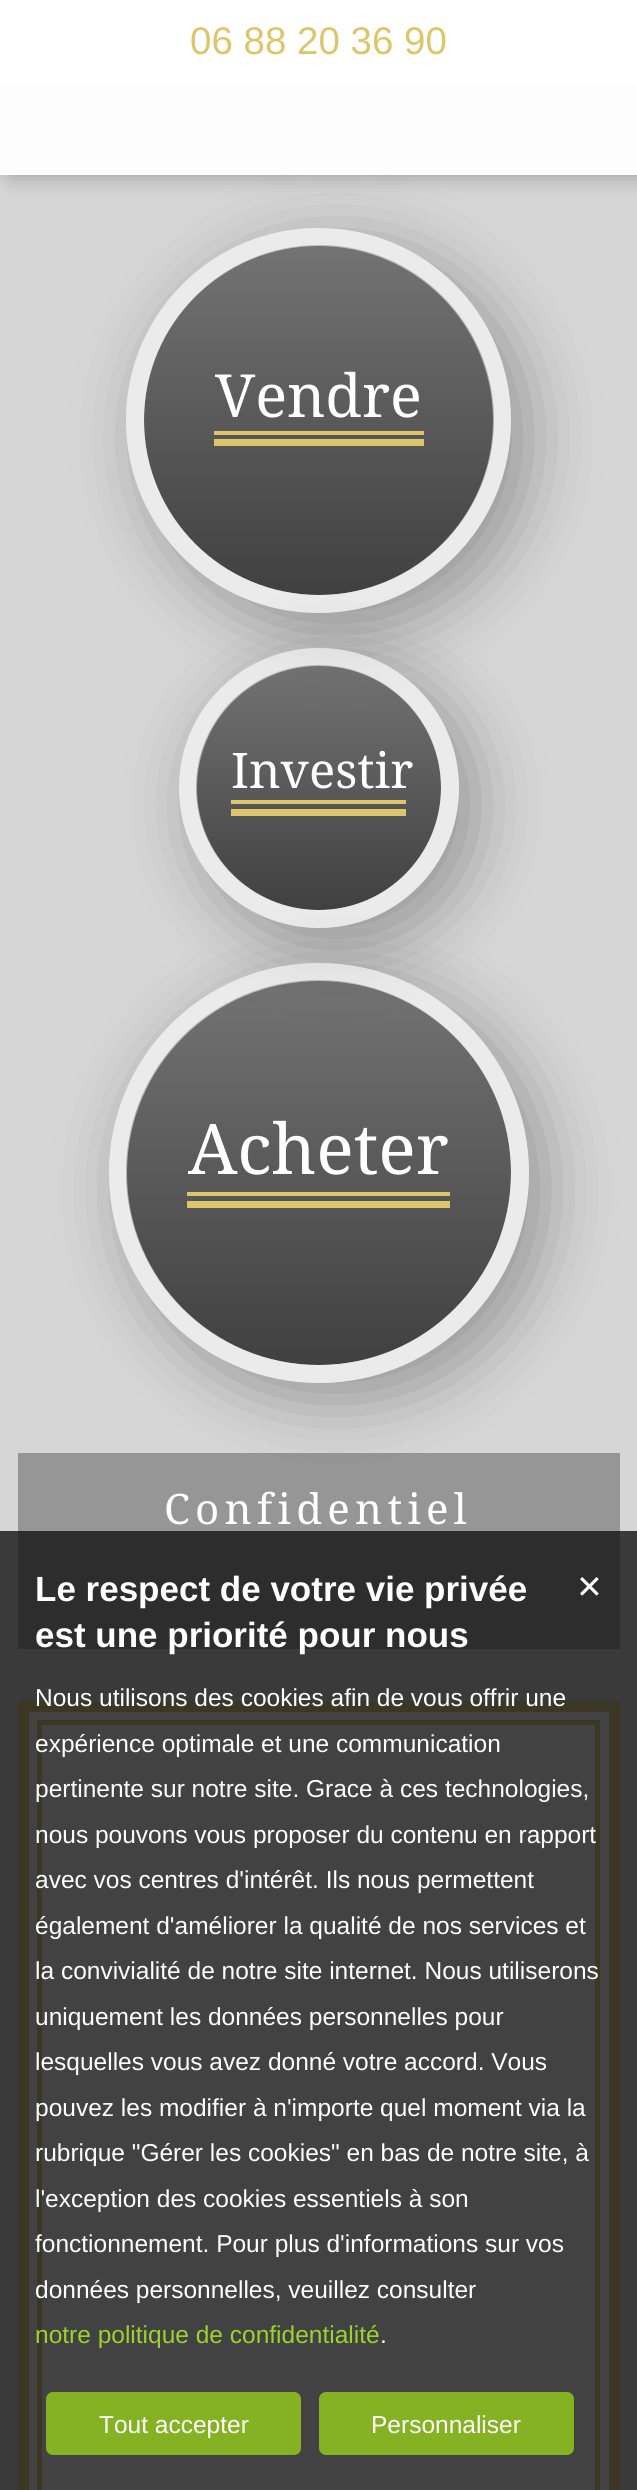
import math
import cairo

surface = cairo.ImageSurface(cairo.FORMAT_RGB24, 637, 2490)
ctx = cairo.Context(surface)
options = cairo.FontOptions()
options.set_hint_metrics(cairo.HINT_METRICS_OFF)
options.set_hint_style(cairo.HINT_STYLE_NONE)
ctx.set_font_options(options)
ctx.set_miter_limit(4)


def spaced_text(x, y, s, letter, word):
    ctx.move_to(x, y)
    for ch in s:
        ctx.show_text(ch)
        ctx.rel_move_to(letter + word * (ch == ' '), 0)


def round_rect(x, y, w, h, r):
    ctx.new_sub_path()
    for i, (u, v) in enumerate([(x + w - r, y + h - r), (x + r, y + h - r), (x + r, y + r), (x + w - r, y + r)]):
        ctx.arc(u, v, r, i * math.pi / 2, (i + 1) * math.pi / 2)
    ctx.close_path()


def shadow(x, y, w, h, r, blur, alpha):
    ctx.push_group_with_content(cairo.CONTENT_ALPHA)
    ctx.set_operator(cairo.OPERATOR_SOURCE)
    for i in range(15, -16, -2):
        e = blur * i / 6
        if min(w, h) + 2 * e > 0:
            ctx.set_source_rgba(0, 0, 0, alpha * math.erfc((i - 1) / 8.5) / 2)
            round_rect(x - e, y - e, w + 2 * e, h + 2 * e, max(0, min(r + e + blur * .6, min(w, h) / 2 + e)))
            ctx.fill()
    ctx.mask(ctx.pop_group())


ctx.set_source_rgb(0.839, 0.839, 0.839)
ctx.paint()
ctx.set_source_rgb(0, 0, 0)
shadow(11, 84, 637, 91, 0, 11.5, 0.3)
ctx.set_source_rgb(1, 1, 1)
ctx.rectangle(0, 0, 637, 84)
ctx.fill()
ctx.select_font_face("Liberation Sans")
ctx.set_font_size(38.5)
ctx.set_source_rgb(0.867, 0.776, 0.416)
ctx.move_to(190, 54)
ctx.show_text("06 88 20 36 90")
ctx.set_source_rgb(0.992, 0.992, 0.992)
ctx.rectangle(0, 84, 637, 91)
ctx.fill()
gradient = cairo.LinearGradient(319, 245, 319, 595)
gradient.add_color_stop_rgba(0, 0.451, 0.451, 0.451, 1)
gradient.add_color_stop_rgba(1, 0.251, 0.251, 0.251, 1)
ctx.set_source(gradient)
ctx.arc(319, 420, 175, 0, 2 * math.pi)
ctx.fill()
ctx.arc(318.5, 420.5, 183.5, 0, 2 * math.pi)
ctx.set_source_rgba(1, 1, 1, 0.5)
ctx.set_line_width(18)
ctx.stroke()
ctx.save()
ctx.set_fill_rule(cairo.FILL_RULE_EVEN_ODD)
ctx.new_path()
ctx.move_to(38, 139)
ctx.line_to(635, 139)
ctx.line_to(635, 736)
ctx.line_to(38, 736)
ctx.close_path()
ctx.move_to(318.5, 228)
ctx.curve_to(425, 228, 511, 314, 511, 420.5)
ctx.curve_to(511, 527, 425, 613, 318.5, 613)
ctx.curve_to(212, 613, 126, 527, 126, 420.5)
ctx.curve_to(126, 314, 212, 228, 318.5, 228)
ctx.close_path()
ctx.clip()
ctx.set_source_rgb(0, 0, 0)
shadow(144, 245, 385, 385, 192.5, 35, 0.3)
ctx.restore()
ctx.set_source_rgb(0.867, 0.776, 0.416)
ctx.rectangle(214, 439, 210, 7)
ctx.fill()
ctx.rectangle(214, 431, 210, 4)
ctx.fill()
ctx.select_font_face("Droid Serif")
ctx.set_font_size(59.5)
ctx.set_source_rgb(1, 1, 1)
ctx.move_to(215, 417)
ctx.show_text("Vendre")
gradient = cairo.LinearGradient(319, 665, 319, 910)
gradient.add_color_stop_rgba(0, 0.286, 0.286, 0.286, 0.7)
gradient.add_color_stop_rgba(1, 0, 0, 0, 0.7)
ctx.set_source(gradient)
ctx.new_path()
ctx.arc(318.5, 787.5, 122.5, 0, 2 * math.pi)
ctx.fill()
ctx.arc(319, 788, 131, 0, 2 * math.pi)
ctx.set_source_rgba(1, 1, 1, 0.5)
ctx.stroke()
ctx.save()
ctx.set_fill_rule(cairo.FILL_RULE_EVEN_ODD)
ctx.new_path()
ctx.move_to(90, 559)
ctx.line_to(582, 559)
ctx.line_to(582, 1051)
ctx.line_to(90, 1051)
ctx.close_path()
ctx.move_to(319, 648)
ctx.curve_to(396.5, 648, 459, 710.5, 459, 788)
ctx.curve_to(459, 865.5, 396.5, 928, 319, 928)
ctx.curve_to(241.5, 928, 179, 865.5, 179, 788)
ctx.curve_to(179, 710.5, 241.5, 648, 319, 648)
ctx.close_path()
ctx.clip()
ctx.set_source_rgb(0, 0, 0)
shadow(196, 665, 280, 280, 140, 35, 0.3)
ctx.restore()
ctx.set_source_rgb(0.867, 0.776, 0.416)
ctx.rectangle(231, 809, 175, 7)
ctx.fill()
ctx.rectangle(231, 800, 175, 4)
ctx.fill()
ctx.set_font_size(49)
ctx.set_source_rgb(1, 1, 1)
ctx.move_to(231, 788)
ctx.show_text("Investir")
gradient = cairo.LinearGradient(319, 980, 319, 1365)
gradient.add_color_stop_rgba(0, 0.286, 0.286, 0.286, 0.7)
gradient.add_color_stop_rgba(1, 0, 0, 0, 0.7)
ctx.set_source(gradient)
ctx.new_path()
ctx.arc(318.5, 1172.5, 192.5, 0, 2 * math.pi)
ctx.fill()
ctx.arc(319, 1173, 201, 0, 2 * math.pi)
ctx.set_source_rgba(1, 1, 1, 0.5)
ctx.stroke()
ctx.save()
ctx.set_fill_rule(cairo.FILL_RULE_EVEN_ODD)
ctx.new_path()
ctx.move_to(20, 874)
ctx.line_to(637, 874)
ctx.line_to(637, 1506)
ctx.line_to(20, 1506)
ctx.close_path()
ctx.move_to(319, 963)
ctx.curve_to(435, 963, 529, 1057, 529, 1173)
ctx.curve_to(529, 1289, 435, 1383, 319, 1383)
ctx.curve_to(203, 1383, 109, 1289, 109, 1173)
ctx.curve_to(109, 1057, 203, 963, 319, 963)
ctx.close_path()
ctx.clip()
ctx.set_source_rgb(0, 0, 0)
shadow(126, 980, 420, 420, 210, 35, 0.3)
ctx.restore()
ctx.set_source_rgb(0.867, 0.776, 0.416)
ctx.rectangle(187, 1201, 263, 7)
ctx.fill()
ctx.rectangle(187, 1192, 263, 4)
ctx.fill()
ctx.set_font_size(70)
ctx.set_source_rgb(1, 1, 1)
ctx.move_to(188, 1174)
ctx.show_text("Acheter")
ctx.set_source_rgba(0, 0, 0, 0.3)
ctx.rectangle(18, 1453, 602, 196)
ctx.fill()
ctx.set_font_size(42)
ctx.set_source_rgb(1, 1, 1)
spaced_text(164, 1524, "Confidentiel", 5.25, 0)
ctx.rectangle(23.5, 1706.5, 591, 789)
ctx.fill_preserve()
ctx.set_source_rgb(0.867, 0.776, 0.416)
ctx.set_line_width(11)
ctx.stroke()
ctx.rectangle(39.5, 1722.5, 558, 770)
ctx.set_line_width(5)
ctx.stroke()
ctx.set_source_rgba(0.078, 0.078, 0.078, 0.8)
ctx.rectangle(0, 1531, 637, 959)
ctx.fill()
ctx.select_font_face("Liberation Sans", cairo.FONT_SLANT_NORMAL, cairo.FONT_WEIGHT_BOLD)
ctx.set_font_size(35)
ctx.set_source_rgb(1, 1, 1)
ctx.move_to(35, 1601)
ctx.show_text("Le respect de votre vie privée")
ctx.move_to(35, 1647)
ctx.show_text("est une priorité pour nous")
ctx.select_font_face("DejaVu Sans")
ctx.set_font_size(32)
ctx.move_to(576, 1598)
ctx.show_text("✕")
ctx.select_font_face("Liberation Sans")
ctx.set_font_size(24.5)
ctx.move_to(35, 1706)
ctx.show_text("Nous utilisons des cookies afin de vous offrir une")
ctx.move_to(35, 1752)
ctx.show_text("expérience optimale et une communication")
ctx.move_to(35, 1797)
ctx.show_text("pertinente sur notre site. Grace à ces technologies,")
ctx.move_to(35, 1843)
ctx.show_text("nous pouvons vous proposer du contenu en rapport")
ctx.move_to(35, 1888)
ctx.show_text("avec vos centres d'intérêt. Ils nous permettent")
ctx.move_to(35, 1934)
ctx.show_text("également d'améliorer la qualité de nos services et")
ctx.move_to(35, 1979)
ctx.show_text("la convivialité de notre site internet. Nous utiliserons")
ctx.move_to(35, 2025)
ctx.show_text("uniquement les données personnelles pour")
ctx.move_to(35, 2070)
ctx.show_text("lesquelles vous avez donné votre accord. Vous")
ctx.move_to(35, 2116)
ctx.show_text("pouvez les modifier à n'importe quel moment via la")
ctx.move_to(35, 2161)
ctx.show_text("rubrique \"Gérer les cookies\" en bas de notre site, à")
ctx.move_to(35, 2207)
ctx.show_text("l'exception des cookies essentiels à son")
ctx.move_to(35, 2252)
ctx.show_text("fonctionnement. Pour plus d'informations sur vos")
ctx.move_to(35, 2298)
ctx.show_text("données personnelles, veuillez consulter")
ctx.set_source_rgb(0.612, 0.824, 0.18)
ctx.move_to(35, 2343)
ctx.show_text("notre politique de confidentialité")
ctx.set_source_rgb(1, 1, 1)
ctx.move_to(380, 2343)
ctx.show_text(".")
ctx.set_source_rgb(0.518, 0.698, 0.133)
round_rect(46, 2392, 255, 63, 7)
ctx.fill()
ctx.set_source_rgb(1, 1, 1)
ctx.move_to(99, 2433)
ctx.show_text("Tout accepter")
ctx.set_source_rgb(0.518, 0.698, 0.133)
round_rect(319, 2392, 255, 63, 7)
ctx.fill()
ctx.set_source_rgb(1, 1, 1)
ctx.move_to(371, 2433)
ctx.show_text("Personnaliser")
surface.write_to_png("page.png")
